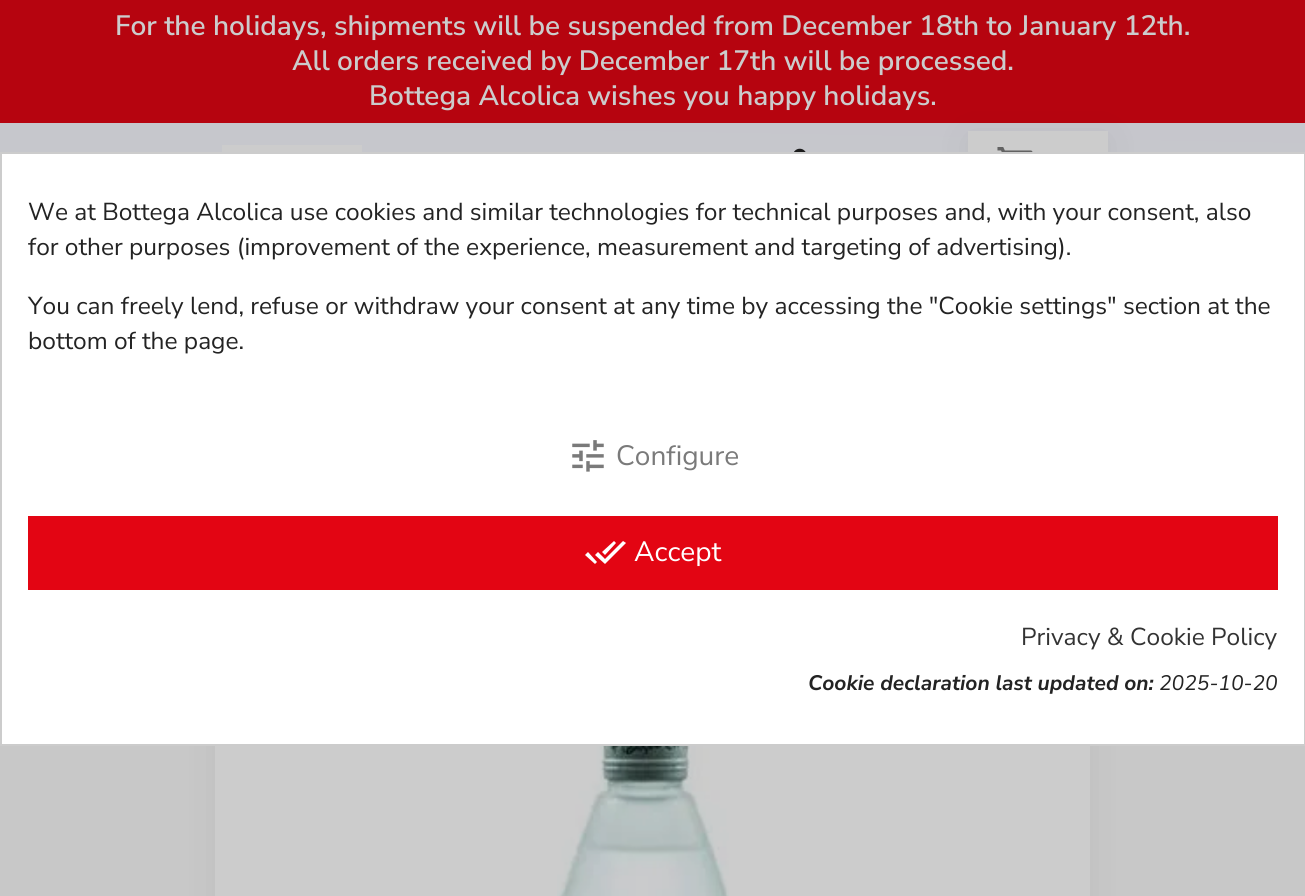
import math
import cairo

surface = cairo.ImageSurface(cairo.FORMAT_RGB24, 1305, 896)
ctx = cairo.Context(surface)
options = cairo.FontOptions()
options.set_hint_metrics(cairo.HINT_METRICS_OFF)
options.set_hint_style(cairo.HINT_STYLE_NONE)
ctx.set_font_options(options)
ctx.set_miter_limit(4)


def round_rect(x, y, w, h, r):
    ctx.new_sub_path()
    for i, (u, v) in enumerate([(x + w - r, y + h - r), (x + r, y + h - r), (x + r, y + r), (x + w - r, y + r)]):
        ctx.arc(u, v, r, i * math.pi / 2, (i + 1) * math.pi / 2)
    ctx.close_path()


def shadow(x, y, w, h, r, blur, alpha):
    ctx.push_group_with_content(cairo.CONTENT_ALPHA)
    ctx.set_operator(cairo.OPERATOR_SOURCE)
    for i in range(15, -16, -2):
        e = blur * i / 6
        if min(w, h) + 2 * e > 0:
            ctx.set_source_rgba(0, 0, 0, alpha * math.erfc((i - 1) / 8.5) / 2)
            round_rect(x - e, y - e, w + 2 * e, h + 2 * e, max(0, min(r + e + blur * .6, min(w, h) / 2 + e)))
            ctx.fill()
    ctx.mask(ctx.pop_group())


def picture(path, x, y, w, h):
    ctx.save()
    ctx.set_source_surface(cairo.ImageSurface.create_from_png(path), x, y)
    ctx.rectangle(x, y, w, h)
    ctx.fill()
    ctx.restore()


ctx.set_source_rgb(0.784, 0.784, 0.784)
ctx.paint()
gradient = cairo.LinearGradient(665, -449, 648, 498)
gradient.add_color_stop_rgba(0, 0.776, 0.784, 0.8, 1)
gradient.add_color_stop_rgba(0.3, 0.757, 0.761, 0.8, 1)
gradient.add_color_stop_rgba(1, 0.8, 0.8, 0.8, 1)
ctx.set_source(gradient)
ctx.rectangle(0, 123, 1305, 29)
ctx.fill()
ctx.set_source_rgb(0.714, 0.016, 0.059)
ctx.rectangle(0, 0, 1305, 123)
ctx.fill()
ctx.select_font_face("Nunito Sans SemiBold")
ctx.set_font_size(28)
ctx.set_source_rgb(0.8, 0.8, 0.8)
ctx.move_to(115, 35)
ctx.show_text("For the holidays, shipments will be suspended from December 18th to January 12th.")
ctx.move_to(292, 70)
ctx.show_text("All orders received by December 17th will be processed.")
ctx.set_source_rgb(0, 0, 0)
shadow(968, 137, 140, 70, 0, 17.5, 0.06)
ctx.set_source_rgb(0.8, 0.8, 0.8)
ctx.move_to(369, 105)
ctx.show_text("Bottega Alcolica wishes you happy holidays.")
ctx.rectangle(222, 145, 140, 7)
ctx.fill()
picture("img1.png", 794, 148, 12, 4)
ctx.rectangle(968, 131, 140, 21)
ctx.fill()
picture("img2.png", 997, 147, 36, 5)
ctx.set_source_rgb(0, 0, 0)
shadow(215, 583, 875, 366, 0, 17.5, 0.06)
ctx.set_source_rgb(0.8, 0.8, 0.8)
ctx.rectangle(215, 746, 875, 150)
ctx.fill()
picture("img3.png", 557, 746, 172, 150)
ctx.set_source_rgb(1, 1, 1)
ctx.rectangle(1, 153, 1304, 592)
ctx.fill_preserve()
ctx.set_source_rgb(0.8, 0.8, 0.8)
ctx.stroke()
ctx.select_font_face("Nunito Sans")
ctx.set_font_size(24.5)
ctx.set_source_rgb(0.137, 0.137, 0.137)
ctx.move_to(28, 220)
ctx.show_text("We at Bottega Alcolica use cookies and similar technologies for technical purposes and, with your consent, also")
ctx.move_to(28, 255)
ctx.show_text("for other purposes (improvement of the experience, measurement and targeting of advertising).")
ctx.move_to(28, 314)
ctx.show_text("You can freely lend, refuse or withdraw your consent at any time by accessing the \"Cookie settings\" section at the")
ctx.move_to(28, 349)
ctx.show_text("bottom of the page.")
picture("img4.png", 572, 440, 32, 32)
ctx.set_font_size(28)
ctx.set_source_rgb(0.478, 0.478, 0.478)
ctx.move_to(616, 465)
ctx.show_text("Configure")
ctx.set_source_rgb(0.89, 0.02, 0.075)
ctx.rectangle(28, 516, 1250, 74)
ctx.fill()
ctx.set_source_rgb(1, 1, 1)
ctx.new_path()
ctx.move_to(585, 555)
ctx.line_to(588, 552)
ctx.line_to(597, 562)
ctx.line_to(595, 564)
ctx.close_path()
ctx.move_to(623, 541)
ctx.line_to(626, 543)
ctx.line_to(605, 564)
ctx.line_to(595, 555)
ctx.line_to(598, 552)
ctx.line_to(605, 559)
ctx.close_path()
ctx.move_to(616, 543)
ctx.line_to(605, 555)
ctx.line_to(602, 552)
ctx.line_to(614, 541)
ctx.close_path()
ctx.fill()
ctx.move_to(634, 561)
ctx.show_text("Accept")
ctx.set_font_size(24.5)
ctx.set_source_rgb(0.2, 0.2, 0.2)
ctx.move_to(1021, 645)
ctx.show_text("Privacy & Cookie Policy")
ctx.select_font_face("Nunito Sans", cairo.FONT_SLANT_ITALIC, cairo.FONT_WEIGHT_BOLD)
ctx.set_font_size(21)
ctx.set_source_rgb(0.137, 0.137, 0.137)
ctx.move_to(808, 690)
ctx.show_text("Cookie declaration last updated on:")
ctx.select_font_face("Nunito Sans", cairo.FONT_SLANT_ITALIC)
ctx.move_to(1159, 690)
ctx.show_text("2025-10-20")
surface.write_to_png("page.png")
